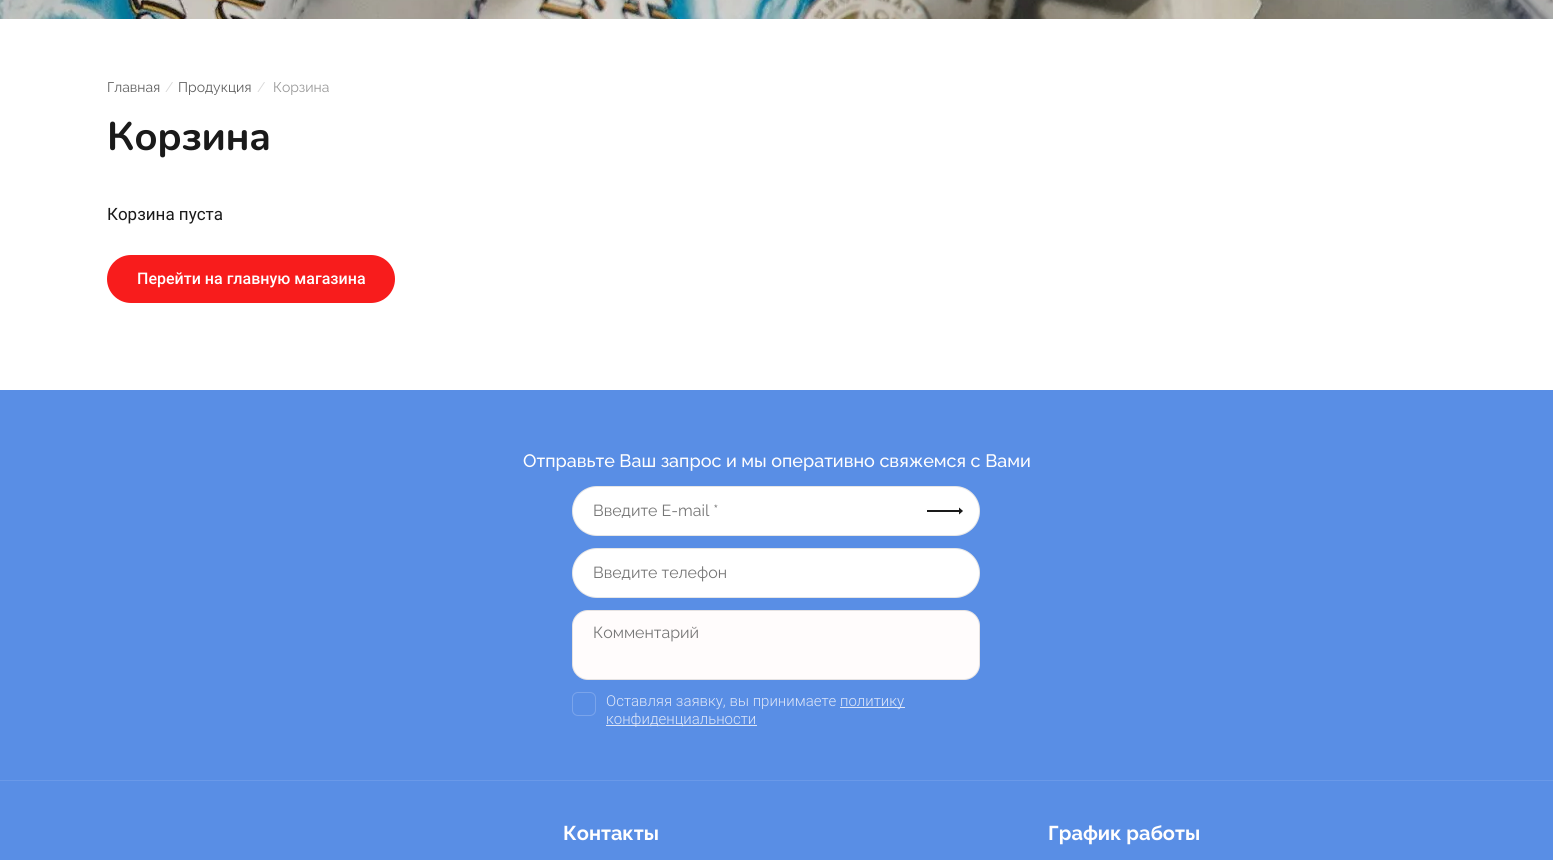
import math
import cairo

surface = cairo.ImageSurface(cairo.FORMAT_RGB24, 1553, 860)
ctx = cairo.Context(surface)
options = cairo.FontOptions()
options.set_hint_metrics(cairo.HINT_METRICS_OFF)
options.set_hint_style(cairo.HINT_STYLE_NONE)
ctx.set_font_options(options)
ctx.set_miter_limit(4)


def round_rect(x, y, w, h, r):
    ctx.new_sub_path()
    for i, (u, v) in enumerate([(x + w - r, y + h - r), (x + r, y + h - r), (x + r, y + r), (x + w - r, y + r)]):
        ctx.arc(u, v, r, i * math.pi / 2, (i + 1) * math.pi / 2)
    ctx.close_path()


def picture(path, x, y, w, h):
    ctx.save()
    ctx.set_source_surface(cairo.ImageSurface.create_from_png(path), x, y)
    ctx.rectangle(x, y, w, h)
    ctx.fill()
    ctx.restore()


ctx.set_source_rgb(1, 1, 1)
ctx.paint()
picture("img1.png", 0, 0, 1553, 19)
ctx.select_font_face("Raleway Thin")
ctx.set_font_size(14)
ctx.set_source_rgb(0.373, 0.373, 0.373)
ctx.move_to(107, 92)
ctx.show_text("Главная")
ctx.set_source_rgb(0.847, 0.847, 0.847)
ctx.move_to(165, 92)
ctx.show_text("/")
ctx.set_source_rgb(0.373, 0.373, 0.373)
ctx.move_to(178, 92)
ctx.show_text("Продукция")
ctx.set_source_rgb(0.847, 0.847, 0.847)
ctx.move_to(257, 92)
ctx.show_text("/")
ctx.set_source_rgb(0.596, 0.596, 0.596)
ctx.move_to(273, 92)
ctx.show_text("Корзина")
ctx.select_font_face("Nunito", cairo.FONT_SLANT_NORMAL, cairo.FONT_WEIGHT_BOLD)
ctx.set_font_size(40)
ctx.set_source_rgb(0.102, 0.102, 0.102)
ctx.move_to(107, 150)
ctx.show_text("Корзина")
ctx.select_font_face("Roboto")
ctx.set_font_size(17)
ctx.move_to(107, 220)
ctx.show_text("Корзина пуста")
ctx.set_source_rgb(0.969, 0.11, 0.11)
round_rect(107, 255, 288, 48, 24)
ctx.fill()
ctx.select_font_face("Roboto Medium")
ctx.set_font_size(16)
ctx.set_source_rgb(1, 0.996, 0.996)
ctx.move_to(137, 284)
ctx.show_text("Перейти на главную магазина")
ctx.set_source_rgb(0.349, 0.557, 0.898)
ctx.rectangle(0, 390, 1553, 470)
ctx.fill()
ctx.select_font_face("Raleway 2 Thin")
ctx.set_font_size(18)
ctx.set_source_rgb(1, 0.996, 0.996)
ctx.move_to(523, 467)
ctx.show_text("Отправьте Ваш запрос и мы оперативно свяжемся с Вами")
ctx.set_source_rgb(1, 1, 1)
round_rect(572, 486, 408, 50, 25)
ctx.fill()
round_rect(572.5, 486.5, 407, 49, 24.5)
ctx.set_source_rgba(0.169, 0.169, 0.169, 0.12)
ctx.set_line_width(1)
ctx.stroke()
ctx.select_font_face("Raleway Thin")
ctx.set_font_size(16)
ctx.set_source_rgb(0.463, 0.463, 0.463)
ctx.move_to(593, 516)
ctx.show_text("Введите E-mail *")
ctx.set_source_rgb(0.102, 0.102, 0.102)
ctx.new_path()
ctx.move_to(959, 512)
ctx.line_to(959, 514.5)
ctx.line_to(963, 511)
ctx.line_to(959, 507.5)
ctx.line_to(959, 510)
ctx.line_to(927, 510)
ctx.line_to(927, 512)
ctx.close_path()
ctx.fill()
ctx.set_source_rgb(1, 1, 1)
round_rect(572, 548, 408, 50, 25)
ctx.fill()
round_rect(572.5, 548.5, 407, 49, 24.5)
ctx.set_source_rgba(0.169, 0.169, 0.169, 0.12)
ctx.stroke()
ctx.set_source_rgb(0.463, 0.463, 0.463)
ctx.move_to(593, 578)
ctx.show_text("Введите телефон")
ctx.set_source_rgb(1, 0.988, 0.988)
round_rect(572, 610, 408, 70, 16)
ctx.fill()
round_rect(572.5, 610.5, 407, 69, 15.5)
ctx.set_source_rgba(0.169, 0.169, 0.169, 0.12)
ctx.stroke()
ctx.set_source_rgb(0.463, 0.463, 0.463)
ctx.move_to(593, 638)
ctx.show_text("Комментарий")
round_rect(572.5, 692.5, 23, 23, 5.5)
ctx.set_source_rgb(0.478, 0.643, 0.918)
ctx.stroke()
ctx.select_font_face("Roboto Light")
ctx.set_font_size(15)
ctx.set_source_rgb(0.871, 0.902, 0.969)
ctx.move_to(606, 706)
ctx.show_text("Оставляя заявку, вы принимаете")
ctx.rectangle(840, 707, 65, 1)
ctx.fill()
ctx.move_to(840, 706)
ctx.show_text("политику")
ctx.rectangle(606, 725, 151, 1)
ctx.fill()
ctx.move_to(606, 724)
ctx.show_text("конфиденциальности")
ctx.set_source_rgb(0.416, 0.6, 0.91)
ctx.rectangle(0, 780, 1553, 1)
ctx.fill()
ctx.select_font_face("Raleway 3 Thin")
ctx.set_font_size(20)
ctx.set_source_rgb(1, 0.996, 0.996)
ctx.move_to(563, 840)
ctx.show_text("Контакты")
ctx.move_to(1048, 840)
ctx.show_text("График работы")
surface.write_to_png("page.png")
